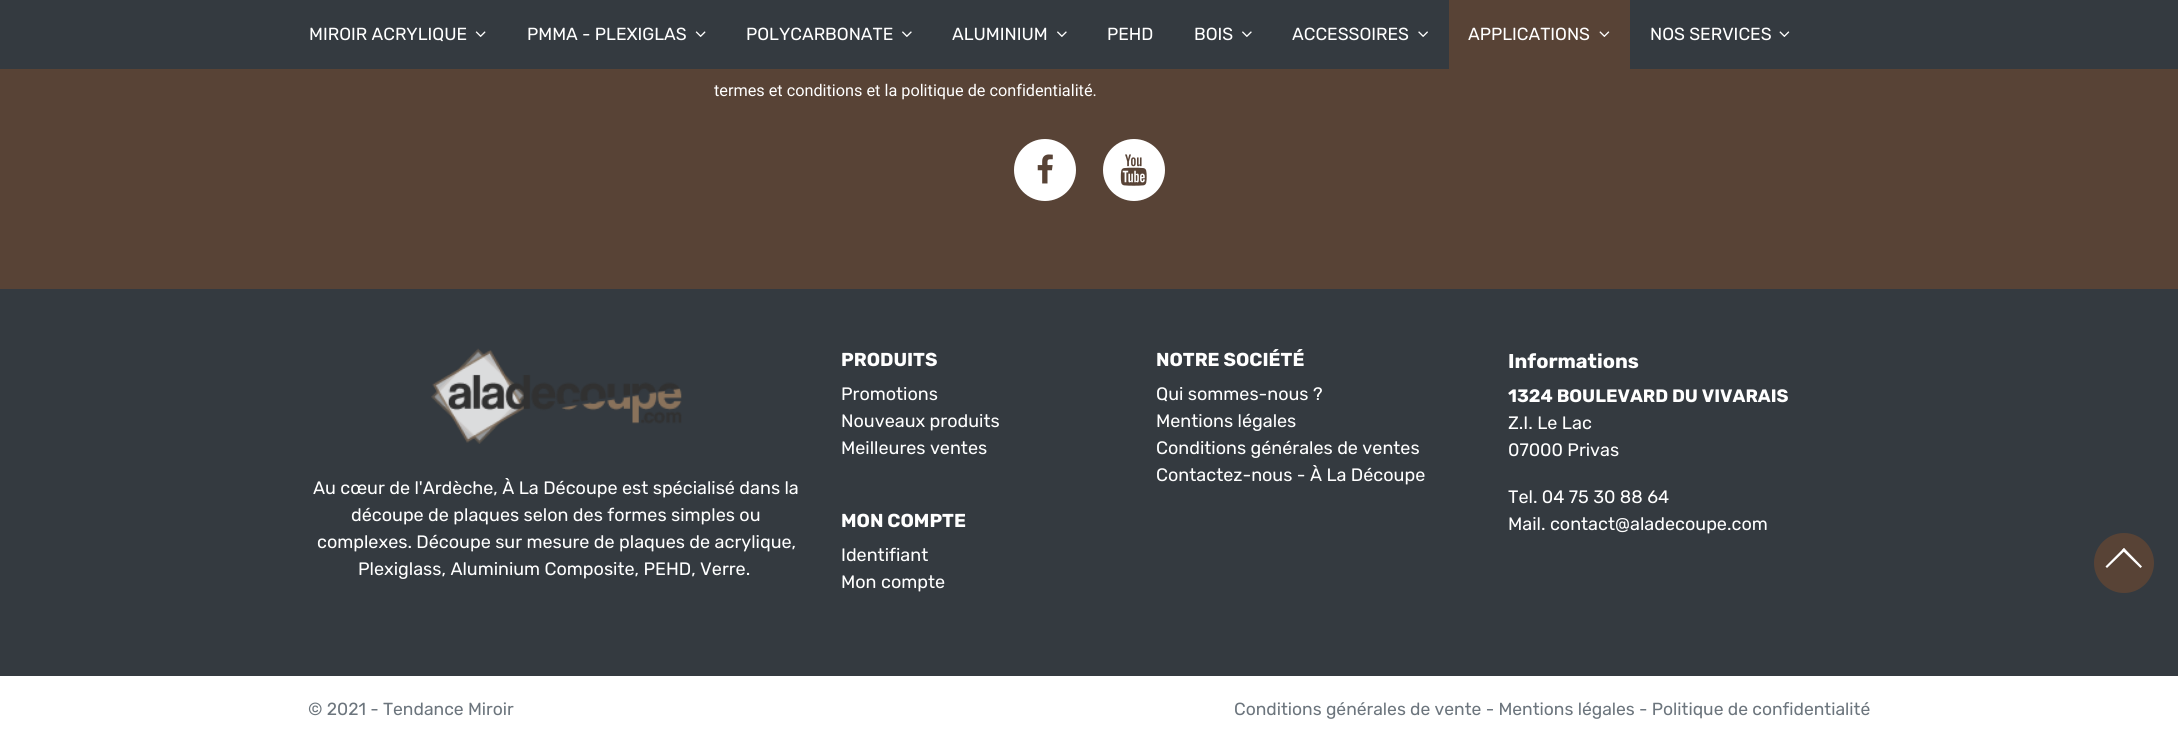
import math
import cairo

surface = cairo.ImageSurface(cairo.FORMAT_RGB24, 2178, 742)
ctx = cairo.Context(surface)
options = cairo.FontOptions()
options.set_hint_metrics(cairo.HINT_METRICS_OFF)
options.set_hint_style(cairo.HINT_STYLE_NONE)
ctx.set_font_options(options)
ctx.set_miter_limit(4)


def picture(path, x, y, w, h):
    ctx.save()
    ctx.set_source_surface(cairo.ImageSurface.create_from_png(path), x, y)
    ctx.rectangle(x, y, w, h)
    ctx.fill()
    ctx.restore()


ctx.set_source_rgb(0.204, 0.227, 0.251)
ctx.paint()
ctx.select_font_face("Rubik")
ctx.set_font_size(17.5)
ctx.set_source_rgb(1, 1, 1)
ctx.move_to(309, 40)
ctx.show_text("MIROIR ACRYLIQUE")
picture("img1.png", 475, 31, 11, 6)
ctx.move_to(527, 40)
ctx.show_text("PMMA - PLEXIGLAS")
picture("img1.png", 695, 31, 11, 6)
ctx.move_to(746, 40)
ctx.show_text("POLYCARBONATE")
picture("img2.png", 902, 31, 10, 6)
ctx.move_to(952, 40)
ctx.show_text("ALUMINIUM")
picture("img2.png", 1057, 31, 10, 6)
ctx.move_to(1107, 40)
ctx.show_text("PEHD")
ctx.move_to(1194, 40)
ctx.show_text("BOIS")
picture("img2.png", 1242, 31, 10, 6)
ctx.move_to(1292, 40)
ctx.show_text("ACCESSOIRES")
picture("img3.png", 1418, 31, 10, 6)
ctx.set_source_rgb(0.345, 0.263, 0.212)
ctx.rectangle(1449, 0, 181, 69)
ctx.fill()
ctx.set_source_rgb(1, 1, 1)
ctx.move_to(1468, 40)
ctx.show_text("APPLICATIONS")
picture("img4.png", 1599, 31, 11, 6)
ctx.move_to(1650, 40)
ctx.show_text("NOS SERVICES")
picture("img5.png", 1779, 31, 11, 6)
ctx.set_source_rgb(0.345, 0.263, 0.212)
ctx.rectangle(0, 69, 2178, 220)
ctx.fill()
ctx.select_font_face("Roboto")
ctx.set_font_size(16.25)
ctx.set_source_rgb(1, 1, 1)
ctx.move_to(714, 96)
ctx.show_text("termes et conditions et la politique de confidentialité.")
ctx.new_path()
ctx.arc(1045, 170, 31, 0, 2 * math.pi)
ctx.fill()
picture("img6.png", 1037, 154, 16, 30)
ctx.arc(1134, 170, 31, 0, 2 * math.pi)
ctx.fill()
picture("img7.png", 1120, 154, 27, 32)
picture("img8.png", 431, 348, 251, 96)
ctx.select_font_face("Rubik")
ctx.set_font_size(18)
ctx.move_to(313, 494)
ctx.show_text("Au cœur de l'Ardèche, À La Découpe est spécialisé dans la")
ctx.move_to(351, 521)
ctx.show_text("découpe de plaques selon des formes simples ou")
ctx.move_to(317, 548)
ctx.show_text("complexes. Découpe sur mesure de plaques de acrylique,")
ctx.move_to(358, 575)
ctx.show_text("Plexiglass, Aluminium Composite, PEHD, Verre.")
ctx.select_font_face("Rubik", cairo.FONT_SLANT_NORMAL, cairo.FONT_WEIGHT_BOLD)
ctx.set_font_size(18.75)
ctx.move_to(841, 366)
ctx.show_text("PRODUITS")
ctx.select_font_face("Rubik")
ctx.set_font_size(18)
ctx.move_to(841, 400)
ctx.show_text("Promotions")
ctx.move_to(841, 427)
ctx.show_text("Nouveaux produits")
ctx.move_to(841, 454)
ctx.show_text("Meilleures ventes")
ctx.select_font_face("Rubik", cairo.FONT_SLANT_NORMAL, cairo.FONT_WEIGHT_BOLD)
ctx.set_font_size(18.75)
ctx.move_to(1156, 366)
ctx.show_text("NOTRE SOCIÉTÉ")
ctx.select_font_face("Rubik")
ctx.set_font_size(18)
ctx.move_to(1156, 400)
ctx.show_text("Qui sommes-nous ?")
ctx.move_to(1156, 427)
ctx.show_text("Mentions légales")
ctx.move_to(1156, 454)
ctx.show_text("Conditions générales de ventes")
ctx.move_to(1156, 481)
ctx.show_text("Contactez-nous - À La Découpe")
ctx.select_font_face("Rubik", cairo.FONT_SLANT_NORMAL, cairo.FONT_WEIGHT_BOLD)
ctx.set_font_size(18.75)
ctx.move_to(841, 527)
ctx.show_text("MON COMPTE")
ctx.select_font_face("Rubik")
ctx.set_font_size(18)
ctx.move_to(841, 561)
ctx.show_text("Identifiant")
ctx.move_to(841, 588)
ctx.show_text("Mon compte")
ctx.select_font_face("Rubik", cairo.FONT_SLANT_NORMAL, cairo.FONT_WEIGHT_BOLD)
ctx.set_font_size(20)
ctx.move_to(1508, 368)
ctx.show_text("Informations")
ctx.set_font_size(18)
ctx.move_to(1508, 402)
ctx.show_text("1324 BOULEVARD DU VIVARAIS")
ctx.select_font_face("Rubik")
ctx.move_to(1508, 429)
ctx.show_text("Z.I. Le Lac")
ctx.move_to(1508, 456)
ctx.show_text("07000 Privas")
ctx.move_to(1508, 503)
ctx.show_text("Tel. 04 75 30 88 64")
ctx.move_to(1508, 530)
ctx.show_text("Mail. contact@aladecoupe.com")
ctx.set_source_rgb(0.345, 0.263, 0.212)
ctx.new_path()
ctx.arc(2124, 563, 30, 0, 2 * math.pi)
ctx.fill()
ctx.set_source_rgb(1, 1, 1)
ctx.new_path()
ctx.move_to(2105.5, 566.5)
ctx.line_to(2124, 548)
ctx.line_to(2125.5, 550)
ctx.line_to(2107, 568)
ctx.close_path()
ctx.fill()
ctx.new_path()
ctx.move_to(2122, 550)
ctx.line_to(2124, 548)
ctx.line_to(2142, 566.5)
ctx.line_to(2140.5, 568)
ctx.close_path()
ctx.fill()
ctx.rectangle(0, 676, 2178, 66)
ctx.fill()
ctx.set_font_size(17.5)
ctx.set_source_rgb(0.424, 0.459, 0.49)
ctx.move_to(308, 715)
ctx.show_text("© 2021 - Tendance Miroir")
ctx.move_to(1234, 715)
ctx.show_text("Conditions générales de vente - Mentions légales - Politique de confidentialité")
surface.write_to_png("page.png")
